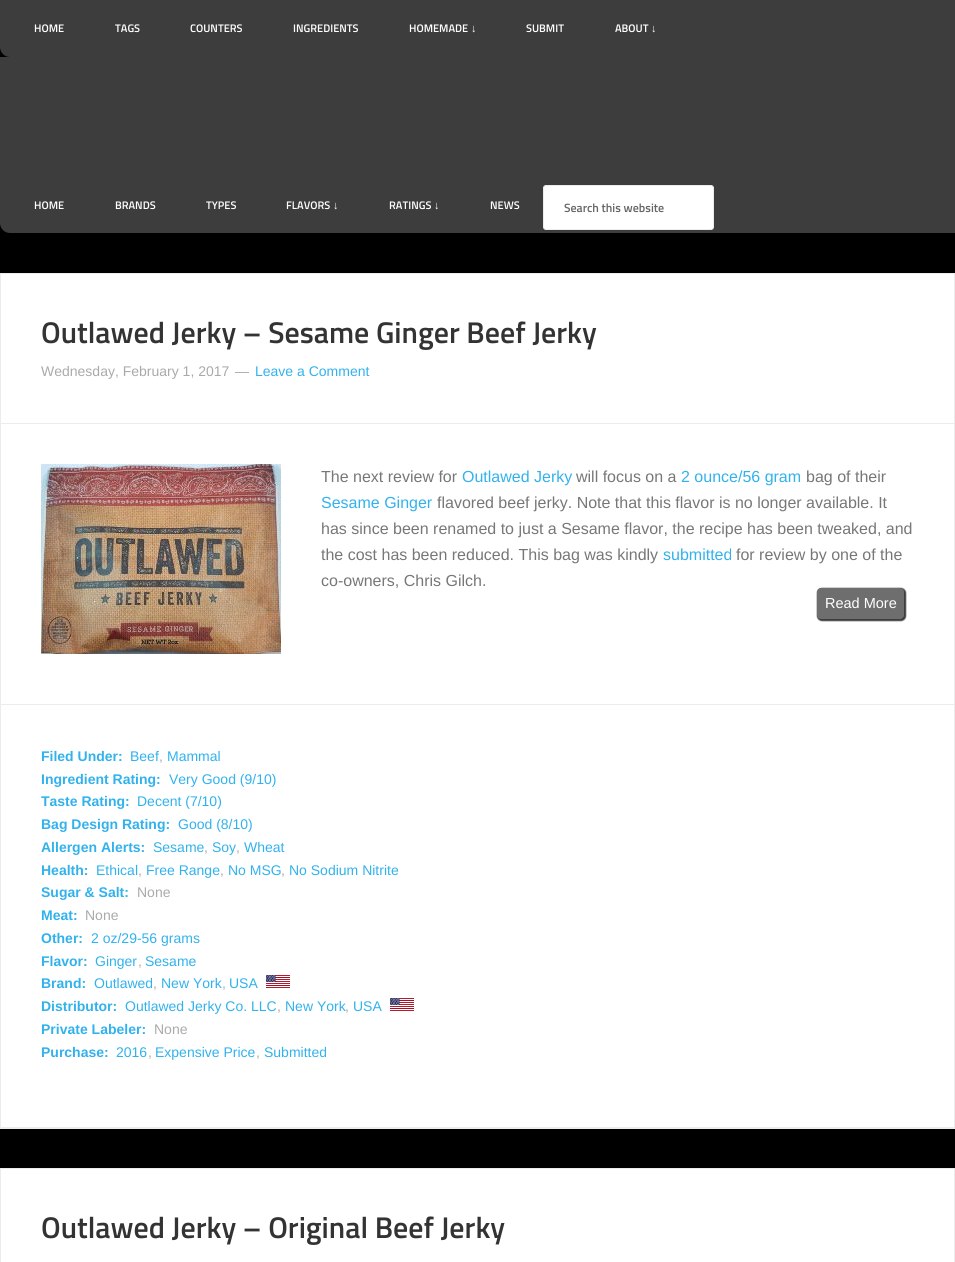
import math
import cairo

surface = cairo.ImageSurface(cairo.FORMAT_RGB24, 955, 1262)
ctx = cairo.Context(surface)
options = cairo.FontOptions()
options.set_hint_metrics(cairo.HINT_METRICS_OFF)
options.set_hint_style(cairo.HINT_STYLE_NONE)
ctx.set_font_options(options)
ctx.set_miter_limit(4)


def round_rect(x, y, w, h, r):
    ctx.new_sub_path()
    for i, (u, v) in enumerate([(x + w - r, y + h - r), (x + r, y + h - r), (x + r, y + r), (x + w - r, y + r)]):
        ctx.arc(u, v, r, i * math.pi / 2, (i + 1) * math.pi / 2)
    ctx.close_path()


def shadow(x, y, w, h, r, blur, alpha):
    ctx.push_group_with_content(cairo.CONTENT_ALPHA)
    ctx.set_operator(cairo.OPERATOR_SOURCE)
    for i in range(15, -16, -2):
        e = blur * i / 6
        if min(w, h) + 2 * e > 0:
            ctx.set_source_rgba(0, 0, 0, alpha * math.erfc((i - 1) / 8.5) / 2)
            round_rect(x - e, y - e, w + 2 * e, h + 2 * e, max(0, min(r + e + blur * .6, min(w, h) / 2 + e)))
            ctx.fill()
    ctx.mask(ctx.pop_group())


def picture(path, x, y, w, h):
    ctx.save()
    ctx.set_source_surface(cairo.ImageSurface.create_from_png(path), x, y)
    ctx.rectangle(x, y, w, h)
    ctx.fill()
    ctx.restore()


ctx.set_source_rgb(0, 0, 0)
ctx.paint()
ctx.set_source_rgb(0.239, 0.239, 0.239)
ctx.new_path()
ctx.move_to(0, 0)
ctx.line_to(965, 0)
ctx.line_to(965, 47)
ctx.curve_to(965, 52.5, 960.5, 57, 955, 57)
ctx.line_to(10, 57)
ctx.curve_to(4.5, 57, 0, 52.5, 0, 47)
ctx.close_path()
ctx.fill()
ctx.select_font_face("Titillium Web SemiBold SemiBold")
ctx.set_font_size(11)
ctx.set_source_rgb(1, 1, 1)
ctx.move_to(34, 32)
ctx.show_text("HOME")
ctx.move_to(115, 32)
ctx.show_text("TAGS")
ctx.move_to(190, 32)
ctx.show_text("COUNTERS")
ctx.move_to(293, 32)
ctx.show_text("INGREDIENTS")
ctx.move_to(409, 32)
ctx.show_text("HOMEMADE")
ctx.select_font_face("Liberation Sans")
ctx.move_to(471, 32)
ctx.show_text("↓")
ctx.select_font_face("Titillium Web SemiBold SemiBold")
ctx.move_to(526, 32)
ctx.show_text("SUBMIT")
ctx.move_to(615, 32)
ctx.show_text("ABOUT")
ctx.select_font_face("Liberation Sans")
ctx.move_to(651, 32)
ctx.show_text("↓")
ctx.set_source_rgb(0.239, 0.239, 0.239)
ctx.rectangle(0, 57, 955, 120)
ctx.fill()
ctx.new_path()
ctx.move_to(0, 177)
ctx.line_to(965, 177)
ctx.line_to(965, 223)
ctx.curve_to(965, 228.5, 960.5, 233, 955, 233)
ctx.line_to(10, 233)
ctx.curve_to(4.5, 233, 0, 228.5, 0, 223)
ctx.close_path()
ctx.fill()
ctx.select_font_face("Titillium Web SemiBold SemiBold")
ctx.set_source_rgb(1, 1, 1)
ctx.move_to(34, 209)
ctx.show_text("HOME")
ctx.move_to(115, 209)
ctx.show_text("BRANDS")
ctx.move_to(206, 209)
ctx.show_text("TYPES")
ctx.move_to(286, 209)
ctx.show_text("FLAVORS")
ctx.select_font_face("Liberation Sans")
ctx.move_to(333, 209)
ctx.show_text("↓")
ctx.select_font_face("Titillium Web SemiBold SemiBold")
ctx.move_to(389, 209)
ctx.show_text("RATINGS")
ctx.select_font_face("Liberation Sans")
ctx.move_to(434, 209)
ctx.show_text("↓")
ctx.select_font_face("Titillium Web SemiBold SemiBold")
ctx.move_to(490, 209)
ctx.show_text("NEWS")
round_rect(543.5, 185.5, 170, 44, 2.5)
ctx.fill_preserve()
ctx.set_source_rgb(0.925, 0.925, 0.925)
ctx.set_line_width(1)
ctx.stroke()
ctx.set_font_size(12)
ctx.set_source_rgb(0.4, 0.4, 0.4)
ctx.move_to(564, 212)
ctx.show_text("Search this website")
ctx.set_source_rgb(0.925, 0.925, 0.925)
ctx.rectangle(0, 1128, 955, 1)
ctx.fill()
ctx.set_source_rgb(1, 1, 1)
ctx.rectangle(0.5, 273.5, 954, 854)
ctx.fill_preserve()
ctx.set_source_rgb(0.925, 0.925, 0.925)
ctx.stroke()
ctx.rectangle(1, 423, 953, 1)
ctx.fill()
ctx.set_font_size(30)
ctx.set_source_rgb(0.2, 0.2, 0.2)
ctx.move_to(41, 343)
ctx.show_text("Outlawed Jerky – Sesame Ginger Beef Jerky")
ctx.select_font_face("Liberation Sans")
ctx.set_font_size(14)
ctx.set_source_rgb(0.667, 0.667, 0.667)
ctx.move_to(41, 376)
ctx.show_text("Wednesday, February 1, 2017")
ctx.move_to(235, 376)
ctx.show_text("—")
ctx.set_source_rgb(0.192, 0.698, 0.929)
ctx.move_to(255, 376)
ctx.show_text("Leave a Comment")
picture("img1.png", 41, 464, 240, 190)
ctx.set_font_size(16)
ctx.set_source_rgb(0.467, 0.467, 0.467)
ctx.move_to(321, 482)
ctx.show_text("The next review for")
ctx.set_source_rgb(0.192, 0.698, 0.929)
ctx.move_to(462, 482)
ctx.show_text("Outlawed Jerky")
ctx.set_source_rgb(0.467, 0.467, 0.467)
ctx.move_to(576, 482)
ctx.show_text("will focus on a")
ctx.set_source_rgb(0.192, 0.698, 0.929)
ctx.move_to(681, 482)
ctx.show_text("2 ounce/56 gram")
ctx.set_source_rgb(0.467, 0.467, 0.467)
ctx.move_to(806, 482)
ctx.show_text("bag of their")
ctx.set_source_rgb(0.192, 0.698, 0.929)
ctx.move_to(321, 508)
ctx.show_text("Sesame Ginger")
ctx.set_source_rgb(0.467, 0.467, 0.467)
ctx.move_to(437, 508)
ctx.show_text("flavored beef jerky. Note that this flavor is no longer available. It")
ctx.move_to(321, 534)
ctx.show_text("has since been renamed to just a Sesame flavor, the recipe has been tweaked, and")
ctx.move_to(321, 560)
ctx.show_text("the cost has been reduced. This bag was kindly")
ctx.set_source_rgb(0.192, 0.698, 0.929)
ctx.move_to(663, 560)
ctx.show_text("submitted")
ctx.set_source_rgb(0.467, 0.467, 0.467)
ctx.move_to(736, 560)
ctx.show_text("for review by one of the")
ctx.move_to(321, 586)
ctx.show_text("co-owners, Chris Gilch.")
ctx.set_source_rgb(0.239, 0.239, 0.239)
shadow(817, 588, 89, 33, 5, 0.5, 1)
ctx.set_source_rgb(0.431, 0.431, 0.431)
round_rect(817, 588, 87, 31, 4)
ctx.fill()
ctx.set_font_size(14.5)
ctx.set_source_rgb(1, 1, 1)
ctx.move_to(825, 608)
ctx.show_text("Read More")
ctx.set_source_rgb(0.925, 0.925, 0.925)
ctx.rectangle(1, 704, 953, 1)
ctx.fill()
ctx.select_font_face("Liberation Sans", cairo.FONT_SLANT_NORMAL, cairo.FONT_WEIGHT_BOLD)
ctx.set_font_size(14)
ctx.set_source_rgb(0.192, 0.698, 0.929)
ctx.move_to(41, 761)
ctx.show_text("Filed Under:")
ctx.select_font_face("Liberation Sans")
ctx.move_to(130, 761)
ctx.show_text("Beef")
ctx.set_source_rgb(0.667, 0.667, 0.667)
ctx.move_to(159, 761)
ctx.show_text(",")
ctx.set_source_rgb(0.192, 0.698, 0.929)
ctx.move_to(167, 761)
ctx.show_text("Mammal")
ctx.select_font_face("Liberation Sans", cairo.FONT_SLANT_NORMAL, cairo.FONT_WEIGHT_BOLD)
ctx.move_to(41, 784)
ctx.show_text("Ingredient Rating:")
ctx.select_font_face("Liberation Sans")
ctx.move_to(169, 784)
ctx.show_text("Very Good (9/10)")
ctx.select_font_face("Liberation Sans", cairo.FONT_SLANT_NORMAL, cairo.FONT_WEIGHT_BOLD)
ctx.move_to(41, 806)
ctx.show_text("Taste Rating:")
ctx.select_font_face("Liberation Sans")
ctx.move_to(137, 806)
ctx.show_text("Decent (7/10)")
ctx.select_font_face("Liberation Sans", cairo.FONT_SLANT_NORMAL, cairo.FONT_WEIGHT_BOLD)
ctx.move_to(41, 829)
ctx.show_text("Bag Design Rating:")
ctx.select_font_face("Liberation Sans")
ctx.move_to(178, 829)
ctx.show_text("Good (8/10)")
ctx.select_font_face("Liberation Sans", cairo.FONT_SLANT_NORMAL, cairo.FONT_WEIGHT_BOLD)
ctx.move_to(41, 852)
ctx.show_text("Allergen Alerts:")
ctx.select_font_face("Liberation Sans")
ctx.move_to(153, 852)
ctx.show_text("Sesame")
ctx.set_source_rgb(0.667, 0.667, 0.667)
ctx.move_to(204, 852)
ctx.show_text(",")
ctx.set_source_rgb(0.192, 0.698, 0.929)
ctx.move_to(212, 852)
ctx.show_text("Soy")
ctx.set_source_rgb(0.667, 0.667, 0.667)
ctx.move_to(236, 852)
ctx.show_text(",")
ctx.set_source_rgb(0.192, 0.698, 0.929)
ctx.move_to(244, 852)
ctx.show_text("Wheat")
ctx.select_font_face("Liberation Sans", cairo.FONT_SLANT_NORMAL, cairo.FONT_WEIGHT_BOLD)
ctx.move_to(41, 875)
ctx.show_text("Health:")
ctx.select_font_face("Liberation Sans")
ctx.move_to(96, 875)
ctx.show_text("Ethical")
ctx.set_source_rgb(0.667, 0.667, 0.667)
ctx.move_to(138, 875)
ctx.show_text(",")
ctx.set_source_rgb(0.192, 0.698, 0.929)
ctx.move_to(146, 875)
ctx.show_text("Free Range")
ctx.set_source_rgb(0.667, 0.667, 0.667)
ctx.move_to(220, 875)
ctx.show_text(",")
ctx.set_source_rgb(0.192, 0.698, 0.929)
ctx.move_to(228, 875)
ctx.show_text("No MSG")
ctx.set_source_rgb(0.667, 0.667, 0.667)
ctx.move_to(281, 875)
ctx.show_text(",")
ctx.set_source_rgb(0.192, 0.698, 0.929)
ctx.move_to(289, 875)
ctx.show_text("No Sodium Nitrite")
ctx.select_font_face("Liberation Sans", cairo.FONT_SLANT_NORMAL, cairo.FONT_WEIGHT_BOLD)
ctx.move_to(41, 897)
ctx.show_text("Sugar & Salt:")
ctx.select_font_face("Liberation Sans")
ctx.set_source_rgb(0.667, 0.667, 0.667)
ctx.move_to(137, 897)
ctx.show_text("None")
ctx.select_font_face("Liberation Sans", cairo.FONT_SLANT_NORMAL, cairo.FONT_WEIGHT_BOLD)
ctx.set_source_rgb(0.192, 0.698, 0.929)
ctx.move_to(41, 920)
ctx.show_text("Meat:")
ctx.select_font_face("Liberation Sans")
ctx.set_source_rgb(0.667, 0.667, 0.667)
ctx.move_to(85, 920)
ctx.show_text("None")
ctx.select_font_face("Liberation Sans", cairo.FONT_SLANT_NORMAL, cairo.FONT_WEIGHT_BOLD)
ctx.set_source_rgb(0.192, 0.698, 0.929)
ctx.move_to(41, 943)
ctx.show_text("Other:")
ctx.select_font_face("Liberation Sans")
ctx.move_to(91, 943)
ctx.show_text("2 oz/29-56 grams")
ctx.select_font_face("Liberation Sans", cairo.FONT_SLANT_NORMAL, cairo.FONT_WEIGHT_BOLD)
ctx.move_to(41, 966)
ctx.show_text("Flavor:")
ctx.select_font_face("Liberation Sans")
ctx.move_to(95, 966)
ctx.show_text("Ginger")
ctx.set_source_rgb(0.667, 0.667, 0.667)
ctx.move_to(138, 966)
ctx.show_text(",")
ctx.set_source_rgb(0.192, 0.698, 0.929)
ctx.move_to(145, 966)
ctx.show_text("Sesame")
ctx.select_font_face("Liberation Sans", cairo.FONT_SLANT_NORMAL, cairo.FONT_WEIGHT_BOLD)
ctx.move_to(41, 988)
ctx.show_text("Brand:")
ctx.select_font_face("Liberation Sans")
ctx.move_to(94, 988)
ctx.show_text("Outlawed")
ctx.set_source_rgb(0.667, 0.667, 0.667)
ctx.move_to(153, 988)
ctx.show_text(",")
ctx.set_source_rgb(0.192, 0.698, 0.929)
ctx.move_to(161, 988)
ctx.show_text("New York")
ctx.set_source_rgb(0.667, 0.667, 0.667)
ctx.move_to(222, 988)
ctx.show_text(",")
ctx.set_source_rgb(0.192, 0.698, 0.929)
ctx.move_to(229, 988)
ctx.show_text("USA")
picture("img2.png", 266, 975, 24, 13)
ctx.select_font_face("Liberation Sans", cairo.FONT_SLANT_NORMAL, cairo.FONT_WEIGHT_BOLD)
ctx.move_to(41, 1011)
ctx.show_text("Distributor:")
ctx.select_font_face("Liberation Sans")
ctx.move_to(125, 1011)
ctx.show_text("Outlawed Jerky Co. LLC")
ctx.set_source_rgb(0.667, 0.667, 0.667)
ctx.move_to(277, 1011)
ctx.show_text(",")
ctx.set_source_rgb(0.192, 0.698, 0.929)
ctx.move_to(285, 1011)
ctx.show_text("New York")
ctx.set_source_rgb(0.667, 0.667, 0.667)
ctx.move_to(345, 1011)
ctx.show_text(",")
ctx.set_source_rgb(0.192, 0.698, 0.929)
ctx.move_to(353, 1011)
ctx.show_text("USA")
picture("img2.png", 390, 998, 24, 13)
ctx.select_font_face("Liberation Sans", cairo.FONT_SLANT_NORMAL, cairo.FONT_WEIGHT_BOLD)
ctx.move_to(41, 1034)
ctx.show_text("Private Labeler:")
ctx.select_font_face("Liberation Sans")
ctx.set_source_rgb(0.667, 0.667, 0.667)
ctx.move_to(154, 1034)
ctx.show_text("None")
ctx.select_font_face("Liberation Sans", cairo.FONT_SLANT_NORMAL, cairo.FONT_WEIGHT_BOLD)
ctx.set_source_rgb(0.192, 0.698, 0.929)
ctx.move_to(41, 1057)
ctx.show_text("Purchase:")
ctx.select_font_face("Liberation Sans")
ctx.move_to(116, 1057)
ctx.show_text("2016")
ctx.set_source_rgb(0.667, 0.667, 0.667)
ctx.move_to(148, 1057)
ctx.show_text(",")
ctx.set_source_rgb(0.192, 0.698, 0.929)
ctx.move_to(155, 1057)
ctx.show_text("Expensive Price")
ctx.set_source_rgb(0.667, 0.667, 0.667)
ctx.move_to(256, 1057)
ctx.show_text(",")
ctx.set_source_rgb(0.192, 0.698, 0.929)
ctx.move_to(264, 1057)
ctx.show_text("Submitted")
ctx.set_source_rgb(1, 1, 1)
ctx.rectangle(0.5, 1168.5, 954, 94)
ctx.fill_preserve()
ctx.set_source_rgb(0.925, 0.925, 0.925)
ctx.stroke()
ctx.select_font_face("Titillium Web SemiBold SemiBold")
ctx.set_font_size(30)
ctx.set_source_rgb(0.2, 0.2, 0.2)
ctx.move_to(41, 1238)
ctx.show_text("Outlawed Jerky – Original Beef Jerky")
surface.write_to_png("page.png")
